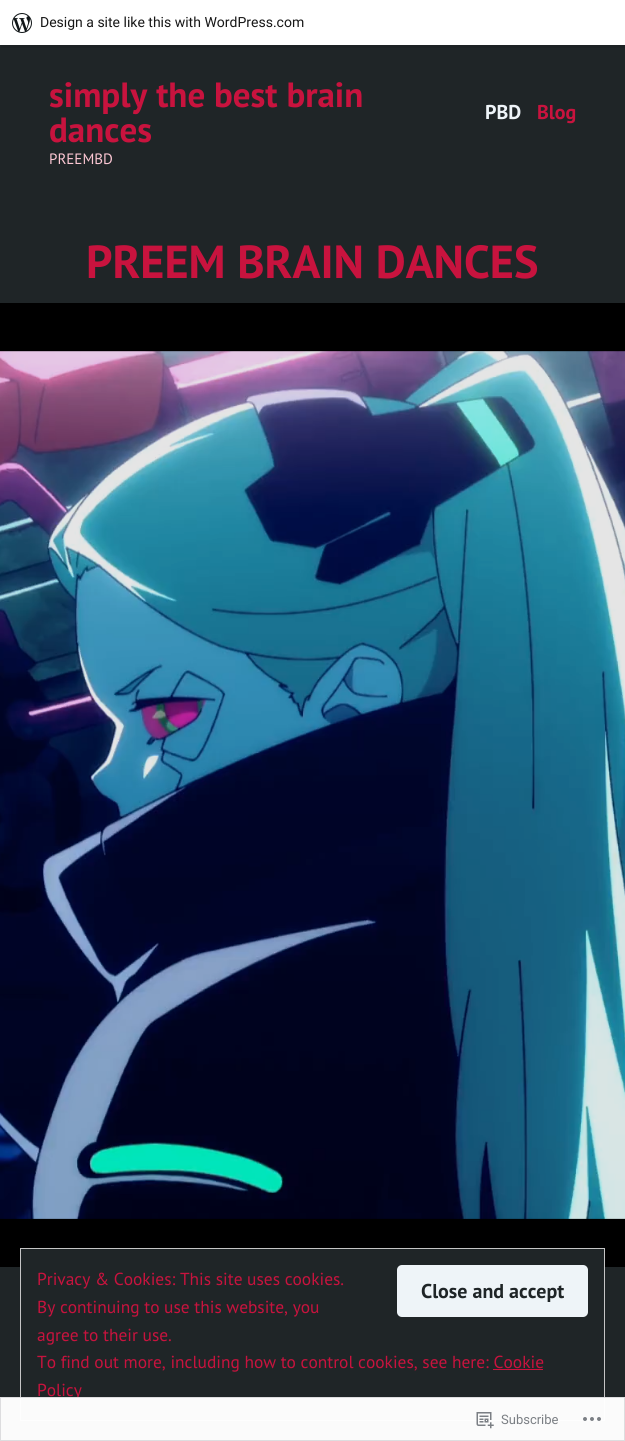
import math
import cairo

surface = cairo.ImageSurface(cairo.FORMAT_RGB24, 625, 1441)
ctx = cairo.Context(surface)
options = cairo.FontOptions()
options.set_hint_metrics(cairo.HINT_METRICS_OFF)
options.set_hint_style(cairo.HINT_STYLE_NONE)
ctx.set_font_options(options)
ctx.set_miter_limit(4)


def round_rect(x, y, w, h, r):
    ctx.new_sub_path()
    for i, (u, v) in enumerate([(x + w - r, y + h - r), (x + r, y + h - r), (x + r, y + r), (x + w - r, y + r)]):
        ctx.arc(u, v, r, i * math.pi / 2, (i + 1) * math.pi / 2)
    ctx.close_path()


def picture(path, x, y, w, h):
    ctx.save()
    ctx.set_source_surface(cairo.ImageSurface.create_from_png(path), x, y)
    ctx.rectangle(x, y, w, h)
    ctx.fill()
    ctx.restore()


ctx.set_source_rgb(0.122, 0.145, 0.153)
ctx.paint()
ctx.set_source_rgb(0.114, 0.133, 0.141)
ctx.new_path()
ctx.move_to(1, 45)
ctx.line_to(1, 48)
ctx.line_to(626, 48)
ctx.line_to(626, 3)
ctx.line_to(625, 3)
ctx.line_to(625, 45)
ctx.close_path()
ctx.fill()
ctx.set_source_rgb(1, 1, 1)
ctx.rectangle(0, 0, 625, 45)
ctx.fill()
picture("img1.png", 12, 13, 20, 20)
ctx.select_font_face("Roboto")
ctx.set_font_size(14)
ctx.set_source_rgb(0.09, 0.09, 0.09)
ctx.move_to(40, 27)
ctx.show_text("Design a site like this with WordPress.com")
ctx.select_font_face("PT Sans", cairo.FONT_SLANT_NORMAL, cairo.FONT_WEIGHT_BOLD)
ctx.set_font_size(35)
ctx.set_source_rgb(0.784, 0.075, 0.243)
ctx.move_to(49, 107)
ctx.show_text("simply the best brain")
ctx.move_to(49, 142)
ctx.show_text("dances")
ctx.set_font_size(20)
ctx.set_source_rgb(0.933, 0.957, 0.969)
ctx.move_to(485, 119)
ctx.show_text("PBD")
ctx.set_source_rgb(0.784, 0.075, 0.243)
ctx.move_to(537, 119)
ctx.show_text("Blog")
ctx.select_font_face("PT Sans")
ctx.set_font_size(15)
ctx.set_source_rgb(0.988, 0.78, 0.827)
ctx.move_to(49, 164)
ctx.show_text("PREEMBD")
ctx.select_font_face("PT Sans", cairo.FONT_SLANT_NORMAL, cairo.FONT_WEIGHT_BOLD)
ctx.set_font_size(46.25)
ctx.set_source_rgb(0.784, 0.075, 0.243)
ctx.move_to(86, 278)
ctx.show_text("PREEM BRAIN DANCES")
picture("img2.png", 0, 303, 625, 964)
ctx.set_source_rgb(0.122, 0.145, 0.153)
ctx.rectangle(21, 1249, 583, 18)
ctx.fill()
ctx.rectangle(20.5, 1248.5, 584, 172)
ctx.set_source_rgb(0.773, 0.773, 0.773)
ctx.set_line_width(1)
ctx.stroke()
ctx.select_font_face("PT Sans")
ctx.set_font_size(17.4)
ctx.set_source_rgb(0.784, 0.075, 0.243)
ctx.move_to(37, 1285)
ctx.show_text("Privacy & Cookies: This site uses cookies.")
ctx.set_source_rgb(0.933, 0.957, 0.969)
round_rect(397, 1265, 191, 52, 5)
ctx.fill()
ctx.select_font_face("PT Sans", cairo.FONT_SLANT_NORMAL, cairo.FONT_WEIGHT_BOLD)
ctx.set_font_size(20)
ctx.set_source_rgb(0.122, 0.145, 0.153)
ctx.move_to(421, 1298)
ctx.show_text("Close and accept")
ctx.select_font_face("PT Sans")
ctx.set_font_size(17.4)
ctx.set_source_rgb(0.784, 0.075, 0.243)
ctx.move_to(37, 1313)
ctx.show_text("By continuing to use this website, you")
ctx.move_to(37, 1341)
ctx.show_text("agree to their use.")
ctx.move_to(37, 1368)
ctx.show_text("To find out more, including how to control cookies, see here: Cookie")
ctx.rectangle(37, 1397, 45, 1)
ctx.fill()
ctx.move_to(37, 1396)
ctx.show_text("Policy")
ctx.rectangle(493, 1369, 50, 1)
ctx.fill()
ctx.set_source_rgba(1, 1, 1, 0.98)
ctx.rectangle(0, 1397, 625, 44)
ctx.fill()
ctx.rectangle(0.5, 1397.5, 624, 43)
ctx.set_source_rgba(0.863, 0.863, 0.871, 0.98)
ctx.stroke()
picture("img3.png", 476, 1412, 18, 17)
ctx.select_font_face("Roboto")
ctx.set_font_size(13)
ctx.set_source_rgb(0.482, 0.498, 0.518)
ctx.move_to(501, 1424)
ctx.show_text("Subscribe")
picture("img4.png", 583, 1417, 18, 4)
surface.write_to_png("page.png")
